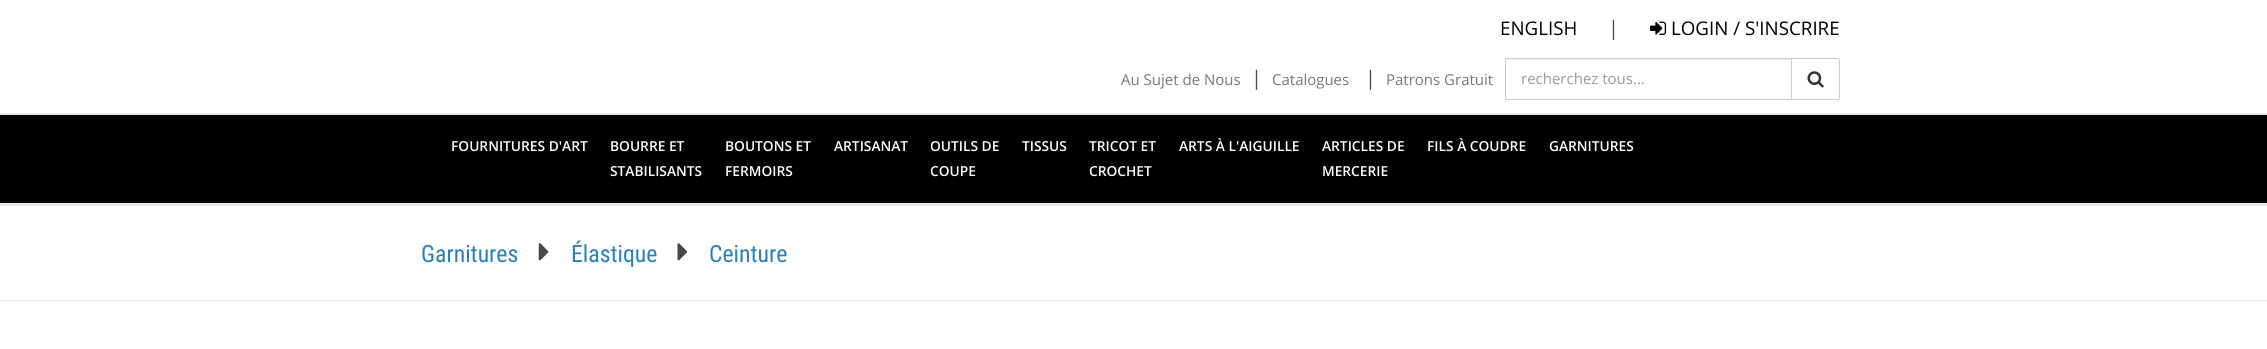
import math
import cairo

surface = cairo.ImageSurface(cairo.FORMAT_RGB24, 2267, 349)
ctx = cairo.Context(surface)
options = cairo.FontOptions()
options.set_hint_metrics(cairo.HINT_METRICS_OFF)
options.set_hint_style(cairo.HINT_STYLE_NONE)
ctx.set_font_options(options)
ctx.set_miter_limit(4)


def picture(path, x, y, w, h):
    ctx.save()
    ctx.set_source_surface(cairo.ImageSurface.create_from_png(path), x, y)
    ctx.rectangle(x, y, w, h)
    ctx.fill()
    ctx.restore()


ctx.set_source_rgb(1, 1, 1)
ctx.paint()
ctx.set_source_rgb(0.906, 0.906, 0.906)
ctx.rectangle(0, 113, 2267, 2)
ctx.fill()
ctx.select_font_face("Open Sans")
ctx.set_font_size(18.75)
ctx.set_source_rgb(0, 0, 0)
ctx.move_to(1500, 35)
ctx.show_text("ENGLISH")
ctx.set_font_size(20)
ctx.set_source_rgb(0.29, 0.29, 0.29)
ctx.move_to(1608, 35)
ctx.show_text("|")
picture("img1.png", 1650, 21, 17, 14)
ctx.set_font_size(18.75)
ctx.set_source_rgb(0, 0, 0)
ctx.move_to(1671, 35)
ctx.show_text("LOGIN / S'INSCRIRE")
ctx.set_font_size(15)
ctx.set_source_rgb(0.467, 0.467, 0.467)
ctx.move_to(1121, 85)
ctx.show_text("Au Sujet de Nous")
ctx.set_font_size(20)
ctx.set_source_rgb(0.29, 0.29, 0.29)
ctx.move_to(1251, 85)
ctx.show_text("|")
ctx.set_font_size(15)
ctx.set_source_rgb(0.467, 0.467, 0.467)
ctx.move_to(1272, 85)
ctx.show_text("Catalogues")
ctx.set_font_size(20)
ctx.set_source_rgb(0.29, 0.29, 0.29)
ctx.move_to(1365, 85)
ctx.show_text("|")
ctx.set_font_size(15)
ctx.set_source_rgb(0.467, 0.467, 0.467)
ctx.move_to(1386, 85)
ctx.show_text("Patrons Gratuit")
ctx.set_source_rgb(0.925, 0.925, 0.925)
ctx.rectangle(1506, 59, 285, 1)
ctx.fill()
ctx.rectangle(1505.5, 58.5, 287, 41)
ctx.set_source_rgb(0.8, 0.8, 0.8)
ctx.set_line_width(1)
ctx.stroke()
ctx.set_source_rgb(0.6, 0.6, 0.6)
ctx.move_to(1521, 84)
ctx.show_text("recherchez tous...")
ctx.set_source_rgb(1, 1, 1)
ctx.new_path()
ctx.move_to(1791.5, 58.5)
ctx.line_to(1837.5, 58.5)
ctx.curve_to(1838.5, 58.5, 1839.5, 59.5, 1839.5, 60.5)
ctx.line_to(1839.5, 97.5)
ctx.curve_to(1839.5, 98.5, 1838.5, 99.5, 1837.5, 99.5)
ctx.line_to(1791.5, 99.5)
ctx.close_path()
ctx.fill_preserve()
ctx.set_source_rgb(0.8, 0.8, 0.8)
ctx.stroke()
picture("img2.png", 1807, 71, 17, 17)
ctx.set_source_rgb(0, 0, 0)
ctx.rectangle(0, 115, 2267, 88)
ctx.fill()
ctx.set_source_rgb(0.906, 0.906, 0.906)
ctx.rectangle(0, 203, 2267, 3)
ctx.fill()
ctx.select_font_face("Open Sans SemiBold")
ctx.set_font_size(13.75)
ctx.set_source_rgb(0.996, 0.992, 0.996)
ctx.move_to(451, 151)
ctx.show_text("FOURNITURES D'ART")
ctx.move_to(610, 151)
ctx.show_text("BOURRE ET")
ctx.move_to(610, 176)
ctx.show_text("STABILISANTS")
ctx.move_to(725, 151)
ctx.show_text("BOUTONS ET")
ctx.move_to(725, 176)
ctx.show_text("FERMOIRS")
ctx.move_to(834, 151)
ctx.show_text("ARTISANAT")
ctx.move_to(930, 151)
ctx.show_text("OUTILS DE")
ctx.move_to(930, 176)
ctx.show_text("COUPE")
ctx.move_to(1022, 151)
ctx.show_text("TISSUS")
ctx.move_to(1089, 151)
ctx.show_text("TRICOT ET")
ctx.move_to(1089, 176)
ctx.show_text("CROCHET")
ctx.move_to(1179, 151)
ctx.show_text("ARTS À L'AIGUILLE")
ctx.move_to(1322, 151)
ctx.show_text("ARTICLES DE")
ctx.move_to(1322, 176)
ctx.show_text("MERCERIE")
ctx.move_to(1427, 151)
ctx.show_text("FILS À COUDRE")
ctx.move_to(1549, 151)
ctx.show_text("GARNITURES")
ctx.set_source_rgb(0.918, 0.918, 0.918)
ctx.rectangle(0, 300, 2267, 1)
ctx.fill()
ctx.select_font_face("Roboto Condensed")
ctx.set_font_size(23.75)
ctx.set_source_rgb(0.161, 0.502, 0.725)
ctx.move_to(421, 262)
ctx.show_text("Garnitures")
picture("img3.png", 538, 243, 11, 18)
ctx.move_to(571, 262)
ctx.show_text("Élastique")
picture("img4.png", 677, 243, 11, 18)
ctx.move_to(709, 262)
ctx.show_text("Ceinture")
surface.write_to_png("page.png")
